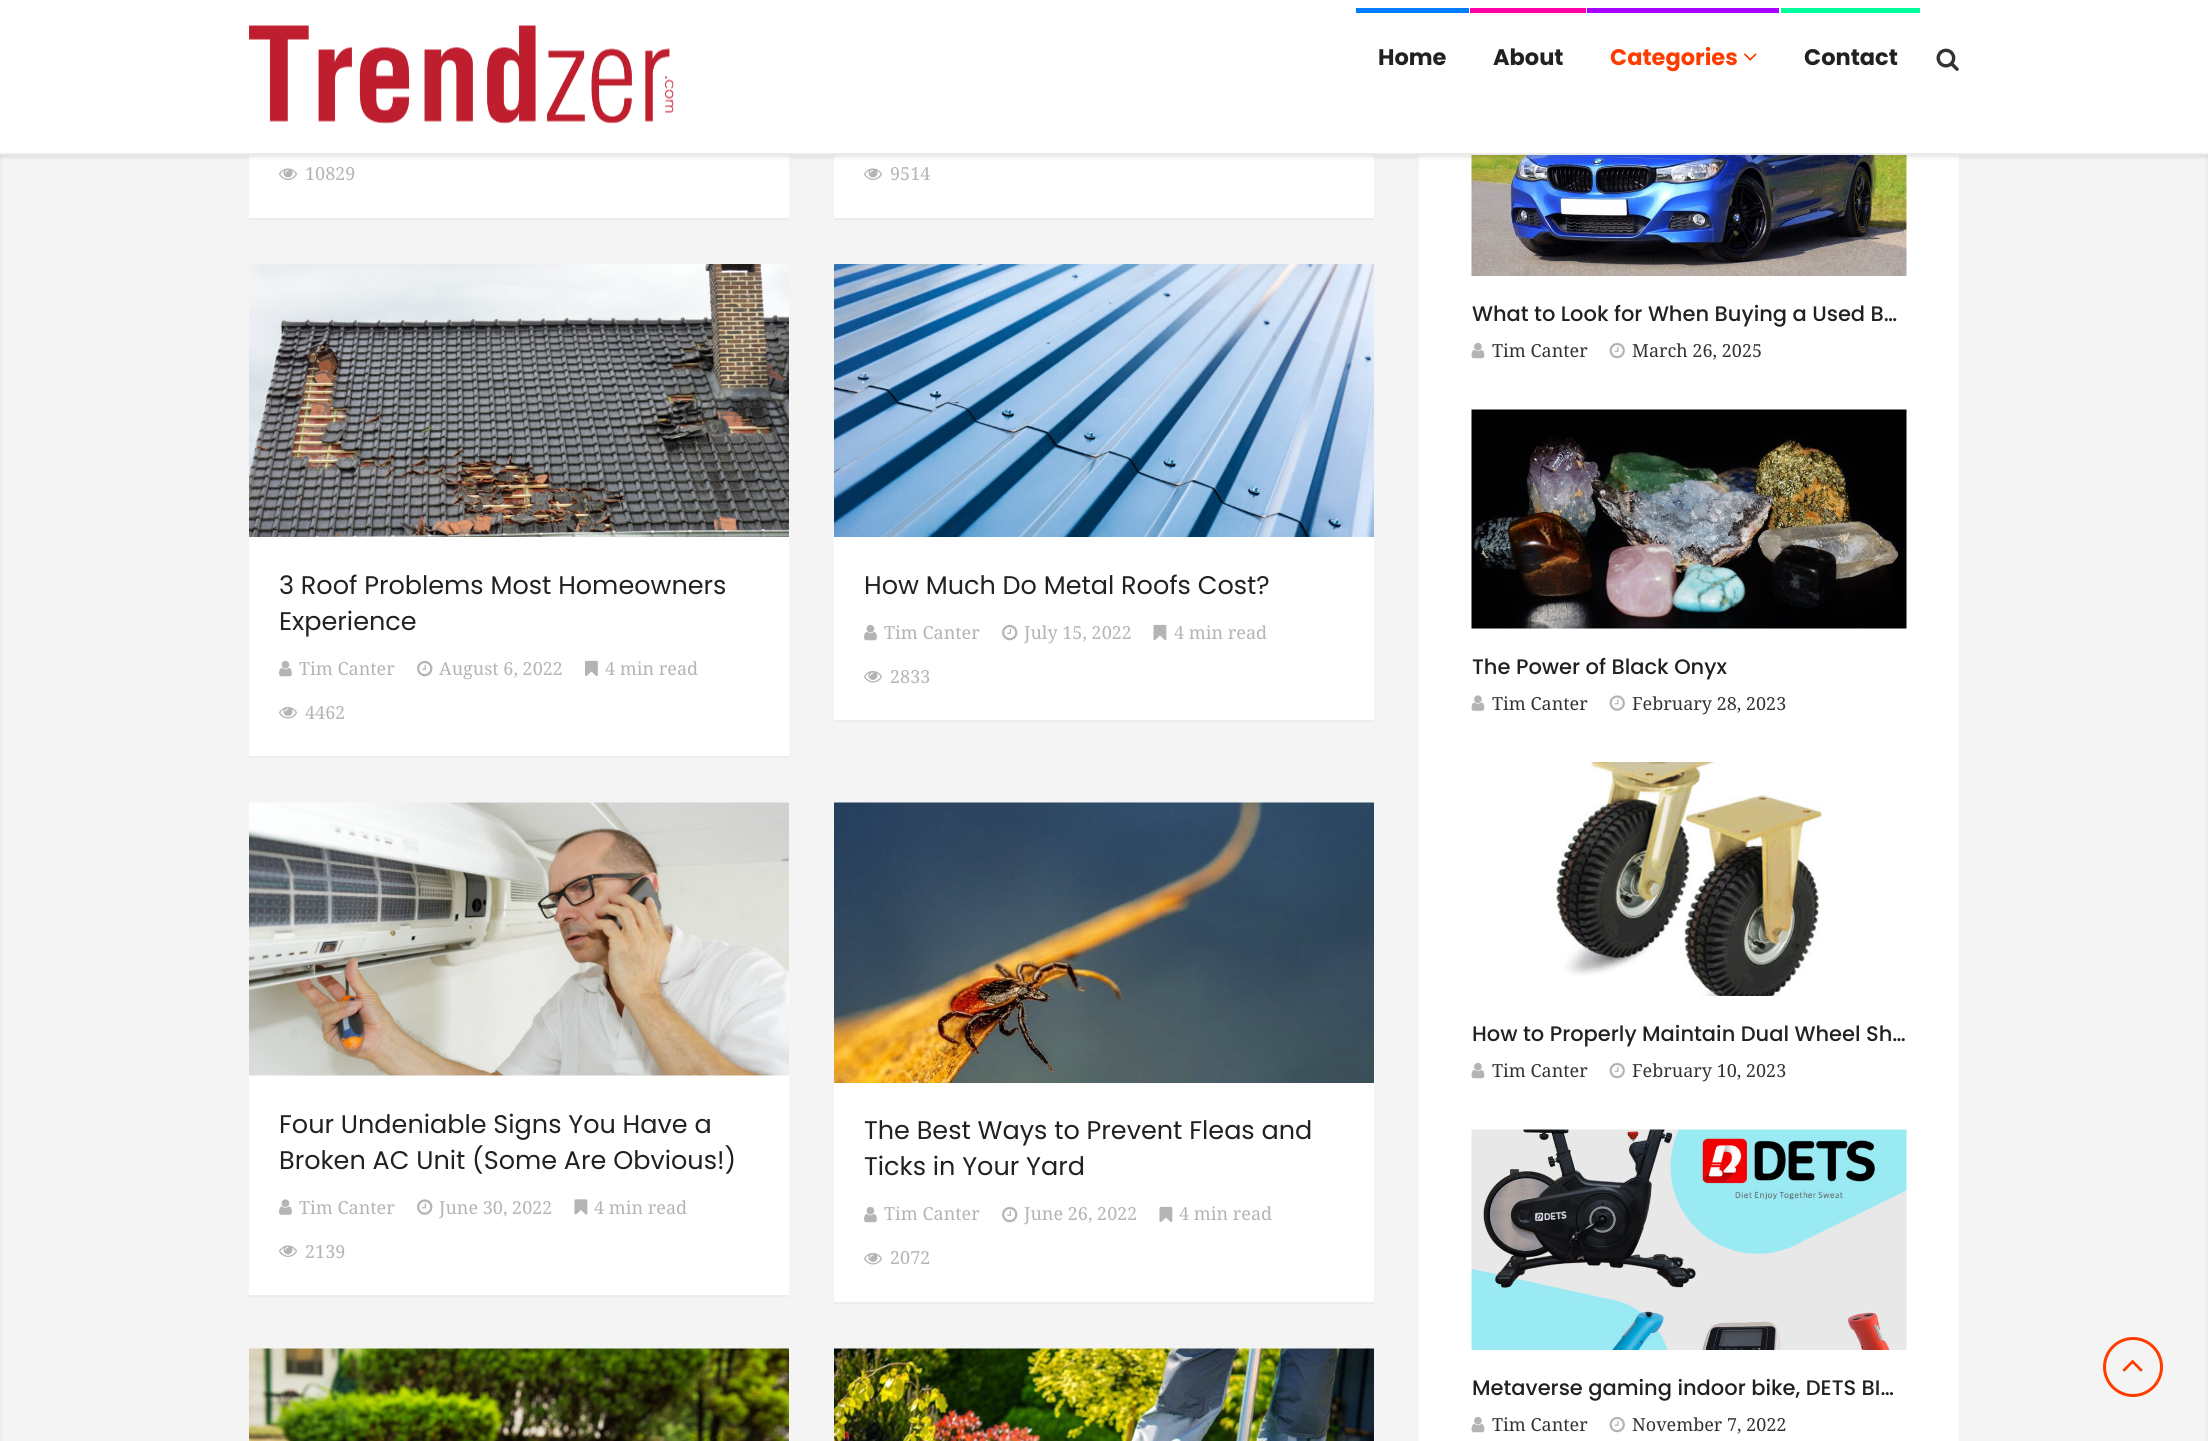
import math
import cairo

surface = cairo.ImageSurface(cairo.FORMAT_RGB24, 2208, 1441)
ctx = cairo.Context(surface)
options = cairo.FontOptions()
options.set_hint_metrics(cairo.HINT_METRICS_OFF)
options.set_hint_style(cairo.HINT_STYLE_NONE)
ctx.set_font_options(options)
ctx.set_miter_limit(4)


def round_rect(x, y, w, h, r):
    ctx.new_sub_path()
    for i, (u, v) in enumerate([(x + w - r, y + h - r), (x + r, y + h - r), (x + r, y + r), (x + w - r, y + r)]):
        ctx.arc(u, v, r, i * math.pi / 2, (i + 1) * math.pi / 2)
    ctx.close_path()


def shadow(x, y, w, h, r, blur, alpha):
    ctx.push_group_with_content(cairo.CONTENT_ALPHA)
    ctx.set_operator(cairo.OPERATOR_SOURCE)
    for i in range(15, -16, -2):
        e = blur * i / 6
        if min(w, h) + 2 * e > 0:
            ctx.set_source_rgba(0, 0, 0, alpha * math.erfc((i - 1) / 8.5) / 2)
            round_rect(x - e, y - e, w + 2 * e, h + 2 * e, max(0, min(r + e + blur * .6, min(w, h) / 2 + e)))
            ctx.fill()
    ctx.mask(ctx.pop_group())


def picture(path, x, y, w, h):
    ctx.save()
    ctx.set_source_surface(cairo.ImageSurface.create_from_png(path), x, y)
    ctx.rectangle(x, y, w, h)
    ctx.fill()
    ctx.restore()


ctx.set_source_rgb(0.957, 0.957, 0.957)
ctx.paint()
ctx.rectangle(1, -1, 2206, 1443)
ctx.set_source_rgb(0.933, 0.925, 0.925)
ctx.stroke()
ctx.set_source_rgb(1, 1, 1)
ctx.rectangle(249, 155, 540, 63)
ctx.fill()
ctx.rectangle(834, 155, 540, 63)
ctx.fill()
ctx.rectangle(1419, 155, 540, 1286)
ctx.fill()
picture("img19.png", 1471, 155, 436, 121)
ctx.set_source_rgb(0, 0, 0)
shadow(0, -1, 2208, 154, 0, 4, 0.32)
ctx.set_source_rgb(1, 1, 1)
ctx.rectangle(0, 0, 2208, 153)
ctx.fill()
ctx.set_source_rgb(0.922, 0.918, 0.918)
ctx.rectangle(0, 153, 2208, 2)
ctx.fill()
picture("img1.png", 249, 25, 425, 99)
ctx.set_source_rgb(0, 0.494, 1)
ctx.rectangle(1356, 8, 113, 5)
ctx.fill()
ctx.select_font_face("Poppins", cairo.FONT_SLANT_NORMAL, cairo.FONT_WEIGHT_BOLD)
ctx.set_font_size(22.5)
ctx.set_source_rgb(0.129, 0.129, 0.129)
ctx.move_to(1378, 65)
ctx.show_text("Home")
ctx.set_source_rgb(1, 0, 0.659)
ctx.rectangle(1470, 8, 116, 5)
ctx.fill()
ctx.set_source_rgb(0.129, 0.129, 0.129)
ctx.move_to(1493, 65)
ctx.show_text("About")
ctx.set_source_rgb(0.659, 0, 1)
ctx.rectangle(1587, 8, 192, 5)
ctx.fill()
ctx.set_source_rgb(1, 0.235, 0)
ctx.move_to(1610, 65)
ctx.show_text("Categories")
picture("img2.png", 1744, 53, 13, 8)
ctx.set_source_rgb(0, 1, 0.612)
ctx.rectangle(1781, 8, 139, 5)
ctx.fill()
ctx.set_source_rgb(0.129, 0.129, 0.129)
ctx.move_to(1804, 65)
ctx.show_text("Contact")
picture("img3.png", 1936, 48, 23, 23)
ctx.set_source_rgb(0.933, 0.925, 0.925)
ctx.rectangle(249, 218, 540, 2)
ctx.fill()
picture("img4.png", 279, 168, 18, 12)
ctx.select_font_face("Droid Serif")
ctx.set_font_size(18)
ctx.set_source_rgb(0.706, 0.706, 0.706)
ctx.move_to(305, 180)
ctx.show_text("10829")
ctx.set_source_rgb(0.933, 0.925, 0.925)
ctx.rectangle(834, 218, 540, 2)
ctx.fill()
picture("img4.png", 864, 168, 18, 12)
ctx.set_source_rgb(0.706, 0.706, 0.706)
ctx.move_to(890, 180)
ctx.show_text("9514")
ctx.set_source_rgb(1, 1, 1)
ctx.rectangle(249, 537, 540, 219)
ctx.fill()
ctx.set_source_rgb(0.933, 0.925, 0.925)
ctx.rectangle(249, 756, 540, 2)
ctx.fill()
picture("img5.png", 249, 264, 540, 273)
ctx.select_font_face("Poppins")
ctx.set_font_size(25.5)
ctx.set_source_rgb(0.129, 0.129, 0.129)
ctx.move_to(279, 594)
ctx.show_text("3 Roof Problems Most Homeowners")
ctx.move_to(279, 630)
ctx.show_text("Experience")
picture("img6.png", 279, 660, 13, 17)
ctx.select_font_face("Droid Serif")
ctx.set_font_size(18)
ctx.set_source_rgb(0.706, 0.706, 0.706)
ctx.move_to(299, 675)
ctx.show_text("Tim Canter")
picture("img7.png", 417, 660, 16, 17)
ctx.move_to(439, 675)
ctx.show_text("August 6, 2022")
picture("img8.png", 585, 660, 13, 16)
ctx.move_to(605, 675)
ctx.show_text("4 min read")
picture("img9.png", 279, 707, 18, 12)
ctx.move_to(305, 719)
ctx.show_text("4462")
ctx.set_source_rgb(1, 1, 1)
ctx.rectangle(834, 537, 540, 183)
ctx.fill()
ctx.set_source_rgb(0.933, 0.925, 0.925)
ctx.rectangle(834, 720, 540, 2)
ctx.fill()
picture("img10.png", 834, 264, 540, 273)
ctx.select_font_face("Poppins")
ctx.set_font_size(25.5)
ctx.set_source_rgb(0.129, 0.129, 0.129)
ctx.move_to(864, 594)
ctx.show_text("How Much Do Metal Roofs Cost?")
picture("img6.png", 864, 624, 13, 17)
ctx.select_font_face("Droid Serif")
ctx.set_font_size(18)
ctx.set_source_rgb(0.706, 0.706, 0.706)
ctx.move_to(884, 639)
ctx.show_text("Tim Canter")
picture("img7.png", 1002, 624, 16, 17)
ctx.move_to(1024, 639)
ctx.show_text("July 15, 2022")
picture("img11.png", 1153, 624, 14, 16)
ctx.move_to(1174, 639)
ctx.show_text("4 min read")
picture("img9.png", 864, 671, 18, 12)
ctx.move_to(890, 683)
ctx.show_text("2833")
ctx.set_source_rgb(1, 1, 1)
ctx.rectangle(249, 1075, 540, 220)
ctx.fill()
ctx.set_source_rgb(0.933, 0.925, 0.925)
ctx.rectangle(249, 1295, 540, 2)
ctx.fill()
picture("img12.png", 249, 802, 540, 274)
ctx.select_font_face("Poppins")
ctx.set_font_size(25.5)
ctx.set_source_rgb(0.129, 0.129, 0.129)
ctx.move_to(279, 1133)
ctx.show_text("Four Undeniable Signs You Have a")
ctx.move_to(279, 1169)
ctx.show_text("Broken AC Unit (Some Are Obvious!)")
picture("img13.png", 279, 1199, 13, 16)
ctx.select_font_face("Droid Serif")
ctx.set_font_size(18)
ctx.set_source_rgb(0.706, 0.706, 0.706)
ctx.move_to(299, 1214)
ctx.show_text("Tim Canter")
picture("img14.png", 417, 1199, 16, 16)
ctx.move_to(439, 1214)
ctx.show_text("June 30, 2022")
picture("img15.png", 574, 1199, 14, 16)
ctx.move_to(594, 1214)
ctx.show_text("4 min read")
picture("img4.png", 279, 1245, 18, 12)
ctx.move_to(305, 1258)
ctx.show_text("2139")
ctx.set_source_rgb(1, 1, 1)
ctx.rectangle(834, 1083, 540, 219)
ctx.fill()
ctx.set_source_rgb(0.933, 0.925, 0.925)
ctx.rectangle(834, 1302, 540, 2)
ctx.fill()
picture("img16.png", 834, 802, 540, 281)
ctx.select_font_face("Poppins")
ctx.set_font_size(25.5)
ctx.set_source_rgb(0.129, 0.129, 0.129)
ctx.move_to(864, 1139)
ctx.show_text("The Best Ways to Prevent Fleas and")
ctx.move_to(864, 1175)
ctx.show_text("Ticks in Your Yard")
picture("img6.png", 864, 1206, 13, 17)
ctx.select_font_face("Droid Serif")
ctx.set_font_size(18)
ctx.set_source_rgb(0.706, 0.706, 0.706)
ctx.move_to(884, 1220)
ctx.show_text("Tim Canter")
picture("img7.png", 1002, 1206, 16, 17)
ctx.move_to(1024, 1220)
ctx.show_text("June 26, 2022")
picture("img11.png", 1159, 1206, 14, 16)
ctx.move_to(1179, 1220)
ctx.show_text("4 min read")
picture("img9.png", 864, 1253, 18, 12)
ctx.move_to(890, 1264)
ctx.show_text("2072")
picture("img17.png", 249, 1348, 540, 93)
picture("img18.png", 834, 1348, 540, 93)
ctx.select_font_face("Poppins Medium")
ctx.set_font_size(21)
ctx.set_source_rgb(0.129, 0.129, 0.129)
ctx.move_to(1472, 321)
ctx.show_text("What to Look for When Buying a Used B…")
picture("img20.png", 1471, 342, 14, 17)
ctx.select_font_face("Droid Serif")
ctx.set_font_size(18)
ctx.set_source_rgb(0.2, 0.2, 0.2)
ctx.move_to(1492, 357)
ctx.show_text("Tim Canter")
picture("img21.png", 1609, 342, 16, 17)
ctx.move_to(1632, 357)
ctx.show_text("March 26, 2025")
picture("img22.png", 1471, 409, 436, 220)
ctx.select_font_face("Poppins Medium")
ctx.set_font_size(21)
ctx.set_source_rgb(0.129, 0.129, 0.129)
ctx.move_to(1472, 674)
ctx.show_text("The Power of Black Onyx")
picture("img23.png", 1471, 695, 14, 16)
ctx.select_font_face("Droid Serif")
ctx.set_font_size(18)
ctx.set_source_rgb(0.2, 0.2, 0.2)
ctx.move_to(1492, 710)
ctx.show_text("Tim Canter")
picture("img24.png", 1609, 695, 16, 16)
ctx.move_to(1632, 710)
ctx.show_text("February 28, 2023")
picture("img25.png", 1553, 762, 274, 234)
ctx.select_font_face("Poppins Medium")
ctx.set_font_size(21)
ctx.set_source_rgb(0.129, 0.129, 0.129)
ctx.move_to(1472, 1041)
ctx.show_text("How to Properly Maintain Dual Wheel Sh…")
picture("img20.png", 1471, 1062, 14, 17)
ctx.select_font_face("Droid Serif")
ctx.set_font_size(18)
ctx.set_source_rgb(0.2, 0.2, 0.2)
ctx.move_to(1492, 1077)
ctx.show_text("Tim Canter")
picture("img21.png", 1609, 1062, 16, 17)
ctx.move_to(1632, 1077)
ctx.show_text("February 10, 2023")
picture("img26.png", 1471, 1129, 436, 221)
ctx.select_font_face("Poppins Medium")
ctx.set_font_size(21)
ctx.set_source_rgb(0.129, 0.129, 0.129)
ctx.move_to(1472, 1395)
ctx.show_text("Metaverse gaming indoor bike, DETS BI…")
picture("img20.png", 1471, 1416, 14, 17)
ctx.select_font_face("Droid Serif")
ctx.set_font_size(18)
ctx.set_source_rgb(0.2, 0.2, 0.2)
ctx.move_to(1492, 1431)
ctx.show_text("Tim Canter")
picture("img21.png", 1609, 1416, 16, 17)
ctx.move_to(1632, 1431)
ctx.show_text("November 7, 2022")
ctx.new_path()
ctx.arc(2133, 1367, 28.5, 0, 2 * math.pi)
ctx.set_source_rgb(1, 0.235, 0)
ctx.set_line_width(3)
ctx.stroke()
picture("img27.png", 2122, 1360, 21, 12)
surface.write_to_png("page.png")
